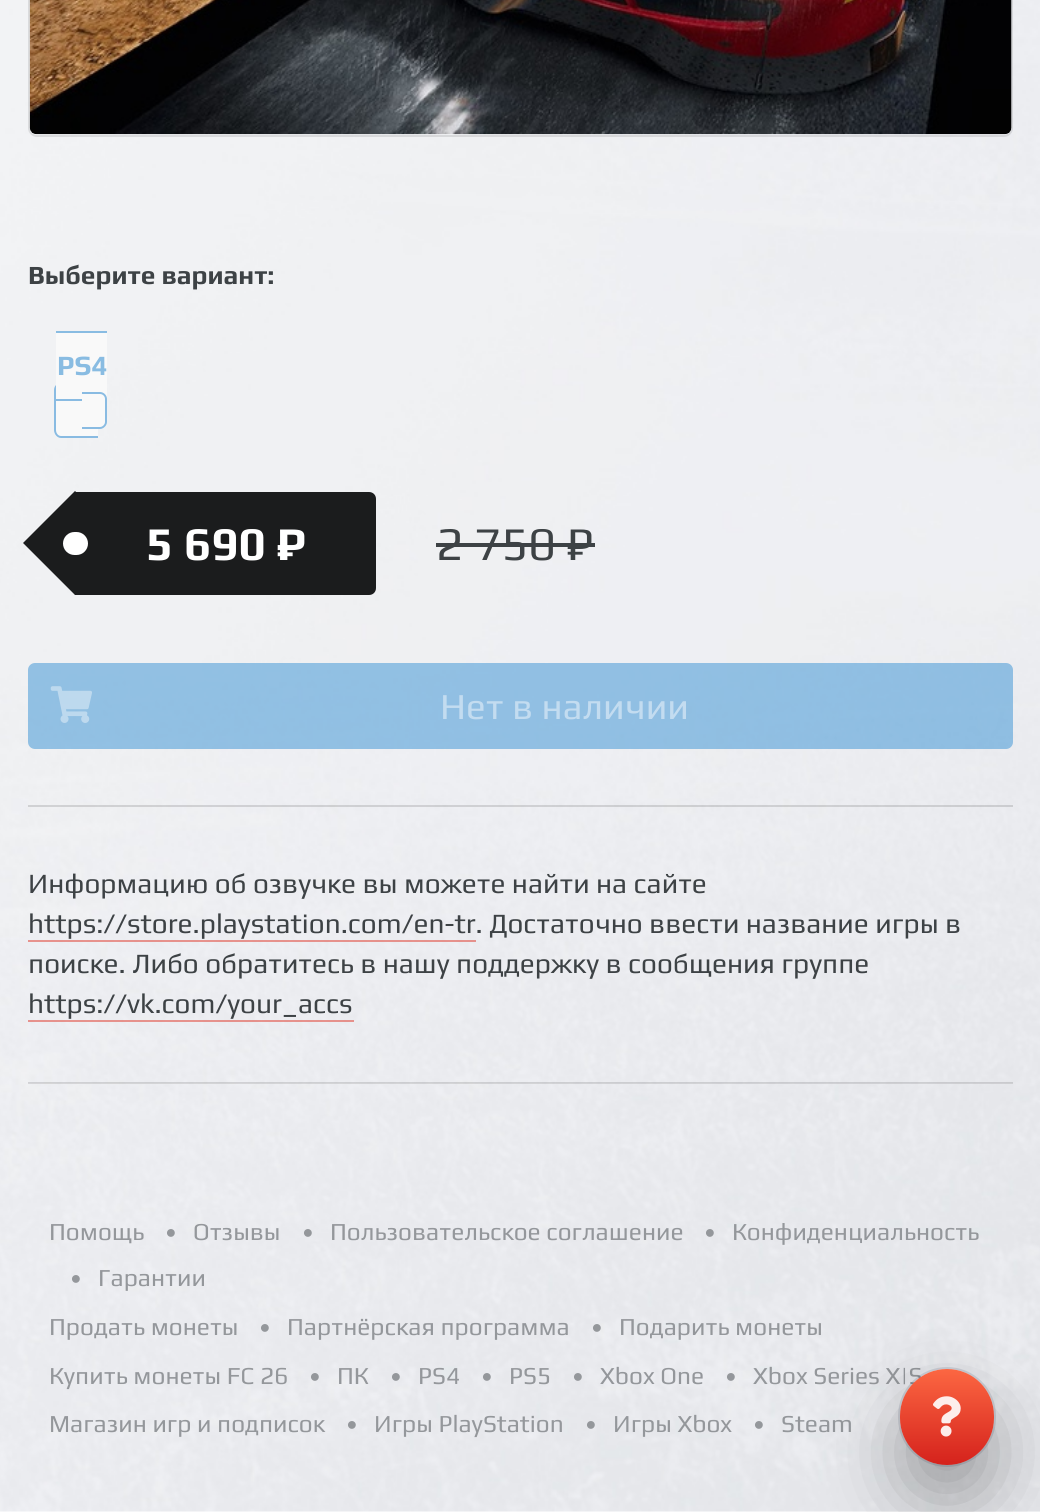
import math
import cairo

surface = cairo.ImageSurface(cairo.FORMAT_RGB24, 1040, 1512)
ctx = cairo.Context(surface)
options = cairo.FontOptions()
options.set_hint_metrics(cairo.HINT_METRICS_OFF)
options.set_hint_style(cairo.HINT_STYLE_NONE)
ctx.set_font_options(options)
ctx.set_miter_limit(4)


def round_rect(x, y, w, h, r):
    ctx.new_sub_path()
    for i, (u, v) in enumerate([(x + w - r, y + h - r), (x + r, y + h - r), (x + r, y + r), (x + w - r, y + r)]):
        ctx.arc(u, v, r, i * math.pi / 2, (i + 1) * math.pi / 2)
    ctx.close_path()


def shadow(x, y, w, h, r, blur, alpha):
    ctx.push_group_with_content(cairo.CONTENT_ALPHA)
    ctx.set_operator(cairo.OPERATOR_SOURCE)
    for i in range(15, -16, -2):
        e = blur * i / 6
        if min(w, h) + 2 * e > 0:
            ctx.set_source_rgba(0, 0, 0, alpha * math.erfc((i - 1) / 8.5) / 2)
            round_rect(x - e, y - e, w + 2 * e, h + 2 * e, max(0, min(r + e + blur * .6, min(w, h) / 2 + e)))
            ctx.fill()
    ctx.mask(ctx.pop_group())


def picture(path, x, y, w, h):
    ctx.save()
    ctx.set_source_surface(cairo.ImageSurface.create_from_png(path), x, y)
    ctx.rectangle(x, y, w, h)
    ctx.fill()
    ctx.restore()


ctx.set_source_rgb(1, 1, 1)
ctx.paint()
picture("img1.png", 0, 0, 1040, 1512)
round_rect(29, -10, 983, 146, 8)
ctx.set_source_rgba(0, 0, 0, 0.1)
ctx.stroke()
picture("img2.png", 29, 0, 983, 135)
ctx.select_font_face("Play", cairo.FONT_SLANT_NORMAL, cairo.FONT_WEIGHT_BOLD)
ctx.set_font_size(26.25)
ctx.set_source_rgb(0.239, 0.259, 0.271)
ctx.move_to(28, 284)
ctx.show_text("Выберите вариант:")
ctx.set_source_rgb(0.973, 0.973, 0.976)
ctx.new_path()
ctx.move_to(61, 383)
ctx.line_to(98, 383)
ctx.line_to(98, 438)
ctx.line_to(61, 438)
ctx.curve_to(57, 438, 54, 435, 54, 431)
ctx.line_to(54, 390)
ctx.curve_to(54, 386, 57, 383, 61, 383)
ctx.close_path()
ctx.fill()
ctx.set_source_rgb(0.537, 0.733, 0.886)
ctx.set_fill_rule(cairo.FILL_RULE_EVEN_ODD)
ctx.new_path()
ctx.move_to(61, 383)
ctx.line_to(98, 383)
ctx.line_to(98, 438)
ctx.line_to(61, 438)
ctx.curve_to(57, 438, 54, 434, 54, 430)
ctx.line_to(54, 390)
ctx.curve_to(54, 386, 57, 383, 61, 383)
ctx.close_path()
ctx.move_to(61, 385)
ctx.line_to(98, 385)
ctx.line_to(98, 436)
ctx.line_to(61, 436)
ctx.curve_to(58, 436, 56, 433, 56, 430)
ctx.line_to(56, 390)
ctx.curve_to(56, 387, 58, 385, 61, 385)
ctx.close_path()
ctx.fill()
ctx.set_source_rgb(0.973, 0.973, 0.976)
ctx.rectangle(56, 333, 51, 66)
ctx.fill()
ctx.set_font_size(28)
ctx.set_source_rgb(0.537, 0.737, 0.886)
ctx.move_to(57, 375)
ctx.show_text("PS4")
ctx.rectangle(56, 331, 51, 2)
ctx.fill()
ctx.set_source_rgb(0.537, 0.733, 0.886)
ctx.rectangle(56, 399, 26, 2)
ctx.fill()
ctx.set_source_rgb(0.973, 0.973, 0.976)
ctx.new_path()
ctx.move_to(82, 392)
ctx.line_to(100, 392)
ctx.curve_to(104, 392, 107, 395, 107, 399)
ctx.line_to(107, 422)
ctx.curve_to(107, 426, 104, 429, 100, 429)
ctx.line_to(82, 429)
ctx.close_path()
ctx.fill()
ctx.set_source_rgb(0.537, 0.733, 0.886)
ctx.new_path()
ctx.move_to(82, 392)
ctx.line_to(100, 392)
ctx.curve_to(103.5, 392, 107, 395, 107, 399)
ctx.line_to(107, 422)
ctx.curve_to(107, 425.5, 103.5, 429, 100, 429)
ctx.line_to(82, 429)
ctx.close_path()
ctx.move_to(82, 394)
ctx.line_to(100, 394)
ctx.curve_to(102.5, 394, 105, 396, 105, 399)
ctx.line_to(105, 422)
ctx.curve_to(105, 424.5, 102.5, 427, 100, 427)
ctx.line_to(82, 427)
ctx.close_path()
ctx.fill()
ctx.set_source_rgb(0.106, 0.11, 0.114)
ctx.new_path()
ctx.move_to(75, 492)
ctx.line_to(369, 492)
ctx.curve_to(373, 492, 376, 495, 376, 499)
ctx.line_to(376, 588)
ctx.curve_to(376, 592, 373, 595, 369, 595)
ctx.line_to(75, 595)
ctx.close_path()
ctx.fill()
ctx.set_fill_rule(cairo.FILL_RULE_WINDING)
ctx.new_path()
ctx.move_to(23, 543)
ctx.line_to(75, 491)
ctx.line_to(127, 543)
ctx.line_to(75, 595)
ctx.close_path()
ctx.fill()
ctx.set_font_size(47)
ctx.set_source_rgb(1, 1, 1)
ctx.move_to(146, 560)
ctx.show_text("5 690 ₽")
round_rect(63, 532, 25, 23, 11.5)
ctx.fill()
ctx.select_font_face("Play")
ctx.set_source_rgb(0.239, 0.259, 0.271)
ctx.move_to(436, 560)
ctx.show_text("2 750 ₽")
ctx.rectangle(436, 543, 159, 4)
ctx.fill()
ctx.set_source_rgba(0.129, 0.522, 0.816, 0.45)
round_rect(28, 663, 985, 86, 7)
ctx.fill()
picture("img3.png", 50, 686, 42, 37)
ctx.set_font_size(36.75)
ctx.set_source_rgb(0.765, 0.863, 0.941)
ctx.move_to(440, 719)
ctx.show_text("Нет в наличии")
ctx.set_source_rgba(0.133, 0.141, 0.149, 0.15)
ctx.rectangle(28, 805, 985, 2)
ctx.fill()
ctx.set_font_size(28)
ctx.set_source_rgb(0.239, 0.259, 0.271)
ctx.move_to(28, 893)
ctx.show_text("Информацию об озвучке вы можете найти на сайте")
ctx.move_to(28, 933)
ctx.show_text("https://store.playstation.com/en-tr. Достаточно ввести название игры в")
ctx.set_source_rgba(0.882, 0.212, 0.157, 0.5)
ctx.rectangle(28, 940, 448, 2)
ctx.fill()
ctx.set_source_rgb(0.239, 0.259, 0.271)
ctx.move_to(28, 973)
ctx.show_text("поиске. Либо обратитесь в нашу поддержку в сообщения группе")
ctx.move_to(28, 1013)
ctx.show_text("https://vk.com/your_accs")
ctx.set_source_rgba(0.882, 0.212, 0.157, 0.5)
ctx.rectangle(28, 1020, 326, 2)
ctx.fill()
ctx.set_source_rgba(0.133, 0.141, 0.149, 0.15)
ctx.rectangle(28, 1082, 985, 2)
ctx.fill()
ctx.set_source_rgba(1, 1, 1, 0.1)
ctx.rectangle(28, 1083, 985, 1)
ctx.fill()
ctx.set_font_size(24.5)
ctx.set_source_rgb(0.58, 0.592, 0.608)
ctx.move_to(49, 1240)
ctx.show_text("Помощь")
ctx.move_to(165, 1240)
ctx.show_text("•")
ctx.move_to(193, 1240)
ctx.show_text("Отзывы")
ctx.move_to(302, 1240)
ctx.show_text("•")
ctx.move_to(330, 1240)
ctx.show_text("Пользовательское соглашение")
ctx.move_to(704, 1240)
ctx.show_text("•")
ctx.move_to(732, 1240)
ctx.show_text("Конфиденциальность")
ctx.move_to(70, 1286)
ctx.show_text("•")
ctx.move_to(98, 1286)
ctx.show_text("Гарантии")
ctx.move_to(49, 1335)
ctx.show_text("Продать монеты")
ctx.move_to(259, 1335)
ctx.show_text("•")
ctx.move_to(287, 1335)
ctx.show_text("Партнёрская программа")
ctx.move_to(591, 1335)
ctx.show_text("•")
ctx.move_to(619, 1335)
ctx.show_text("Подарить монеты")
ctx.move_to(49, 1384)
ctx.show_text("Купить монеты FC 26")
ctx.move_to(309, 1384)
ctx.show_text("•")
ctx.move_to(337, 1384)
ctx.show_text("ПК")
ctx.move_to(390, 1384)
ctx.show_text("•")
ctx.move_to(418, 1384)
ctx.show_text("PS4")
ctx.move_to(481, 1384)
ctx.show_text("•")
ctx.move_to(509, 1384)
ctx.show_text("PS5")
ctx.move_to(572, 1384)
ctx.show_text("•")
ctx.move_to(600, 1384)
ctx.show_text("Xbox One")
ctx.move_to(725, 1384)
ctx.show_text("•")
ctx.move_to(753, 1384)
ctx.show_text("Xbox Series X|S")
ctx.move_to(49, 1432)
ctx.show_text("Магазин игр и подписок")
ctx.move_to(346, 1432)
ctx.show_text("•")
ctx.move_to(374, 1432)
ctx.show_text("Игры PlayStation")
ctx.move_to(585, 1432)
ctx.show_text("•")
ctx.move_to(613, 1432)
ctx.show_text("Игры Xbox")
ctx.move_to(753, 1432)
ctx.show_text("•")
ctx.move_to(781, 1432)
ctx.show_text("Steam")
ctx.set_source_rgb(0, 0, 0)
shadow(900, 1404, 94, 96, 47, 35, 0.3)
round_rect(899, 1368, 96, 98, 48)
ctx.set_source_rgba(0, 0.078, 0.2, 0.12)
ctx.stroke()
gradient = cairo.LinearGradient(947, 1080, 947, 1465)
gradient.add_color_stop_rgba(0, 0.482, 0.078, 0.063, 1)
gradient.add_color_stop_rgba(0.5, 0.835, 0.133, 0.11, 1)
gradient.add_color_stop_rgba(0.75, 0.988, 0.404, 0.259, 1)
gradient.add_color_stop_rgba(1, 0.835, 0.133, 0.11, 1)
ctx.set_source(gradient)
round_rect(900, 1369, 94, 96, 47)
ctx.fill()
picture("img4.png", 933, 1396, 28, 41)
surface.write_to_png("page.png")
